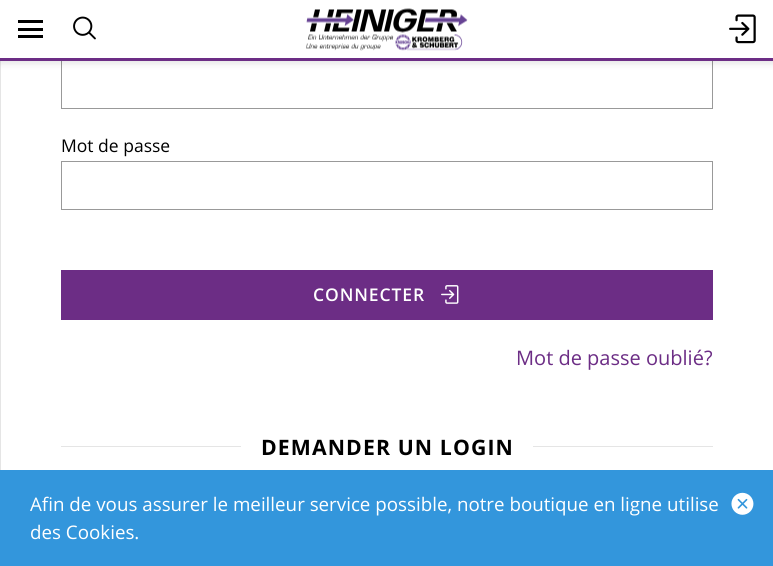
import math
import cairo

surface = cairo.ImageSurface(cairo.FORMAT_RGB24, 773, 566)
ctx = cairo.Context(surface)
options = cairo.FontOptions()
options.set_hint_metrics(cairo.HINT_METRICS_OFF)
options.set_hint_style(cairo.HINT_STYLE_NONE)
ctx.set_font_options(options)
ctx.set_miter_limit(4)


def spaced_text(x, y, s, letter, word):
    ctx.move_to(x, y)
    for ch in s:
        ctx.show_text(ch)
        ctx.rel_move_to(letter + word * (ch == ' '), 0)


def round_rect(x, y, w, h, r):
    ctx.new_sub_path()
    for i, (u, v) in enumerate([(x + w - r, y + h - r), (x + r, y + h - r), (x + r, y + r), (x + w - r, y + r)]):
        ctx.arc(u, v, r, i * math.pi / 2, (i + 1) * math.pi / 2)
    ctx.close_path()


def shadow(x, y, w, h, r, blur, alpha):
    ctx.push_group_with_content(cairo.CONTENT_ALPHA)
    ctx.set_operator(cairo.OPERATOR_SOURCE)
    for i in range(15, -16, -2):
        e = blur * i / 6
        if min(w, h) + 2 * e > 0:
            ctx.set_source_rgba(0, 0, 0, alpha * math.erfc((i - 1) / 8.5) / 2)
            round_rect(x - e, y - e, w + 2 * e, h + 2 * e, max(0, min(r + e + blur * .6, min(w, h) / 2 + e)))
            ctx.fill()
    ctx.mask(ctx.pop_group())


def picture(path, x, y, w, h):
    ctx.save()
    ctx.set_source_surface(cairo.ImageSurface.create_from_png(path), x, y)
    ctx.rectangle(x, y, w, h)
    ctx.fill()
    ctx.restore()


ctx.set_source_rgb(1, 1, 1)
ctx.paint()
ctx.rectangle(0.5, -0.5, 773, 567)
ctx.set_source_rgb(0.898, 0.898, 0.898)
ctx.set_line_width(1)
ctx.stroke()
ctx.rectangle(61.5, 60.5, 651, 48)
ctx.set_source_rgb(0.6, 0.6, 0.6)
ctx.stroke()
ctx.set_source_rgb(0.004, 0.004, 0.004)
shadow(0, 3, 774, 60, 0, 4, 0.12)
ctx.set_source_rgb(1, 1, 1)
ctx.rectangle(0, 0, 773, 58)
ctx.fill()
ctx.set_source_rgb(0.424, 0.176, 0.522)
ctx.rectangle(0, 58, 773, 3)
ctx.fill()
ctx.set_source_rgb(0, 0, 0)
ctx.rectangle(18, 20, 25, 3)
ctx.fill()
ctx.rectangle(18, 28, 25, 3)
ctx.fill()
ctx.rectangle(18, 35, 25, 3)
ctx.fill()
picture("img1.png", 73, 16, 23, 24)
picture("img2.png", 306, 8, 162, 43)
picture("img3.png", 729, 14, 27, 30)
ctx.select_font_face("Open Sans")
ctx.set_font_size(17.5)
ctx.move_to(61, 152)
ctx.show_text("Mot de passe")
ctx.rectangle(61.5, 161.5, 651, 48)
ctx.set_source_rgb(0.6, 0.6, 0.6)
ctx.stroke()
ctx.set_source_rgb(0.424, 0.176, 0.522)
ctx.rectangle(61, 270, 652, 50)
ctx.fill()
ctx.select_font_face("Open Sans SemiBold")
ctx.set_source_rgb(1, 1, 1)
spaced_text(313, 301, "CONNECTER", 0.9, 0)
picture("img4.png", 441, 285, 18, 19)
ctx.select_font_face("Open Sans")
ctx.set_font_size(20)
ctx.set_source_rgb(0.424, 0.176, 0.522)
ctx.move_to(516, 365)
ctx.show_text("Mot de passe oublié?")
ctx.set_source_rgb(0.898, 0.898, 0.898)
ctx.rectangle(61, 446, 180, 1)
ctx.fill()
ctx.select_font_face("Open Sans", cairo.FONT_SLANT_NORMAL, cairo.FONT_WEIGHT_BOLD)
ctx.set_font_size(21.25)
ctx.set_source_rgb(0, 0, 0)
spaced_text(261, 455, "DEMANDER UN LOGIN", 1.1, 0)
ctx.set_source_rgb(0.898, 0.898, 0.898)
ctx.rectangle(533, 446, 180, 1)
ctx.fill()
ctx.set_source_rgb(0.2, 0.588, 0.863)
ctx.rectangle(0, 470, 773, 96)
ctx.fill()
ctx.select_font_face("Open Sans")
ctx.set_font_size(18.75)
ctx.set_source_rgb(1, 1, 1)
ctx.move_to(30, 511)
ctx.show_text("Afin de vous assurer le meilleur service possible, notre boutique en ligne utilise")
ctx.move_to(30, 539)
ctx.show_text("des Cookies.")
picture("img5.png", 731, 492, 23, 23)
surface.write_to_png("page.png")
